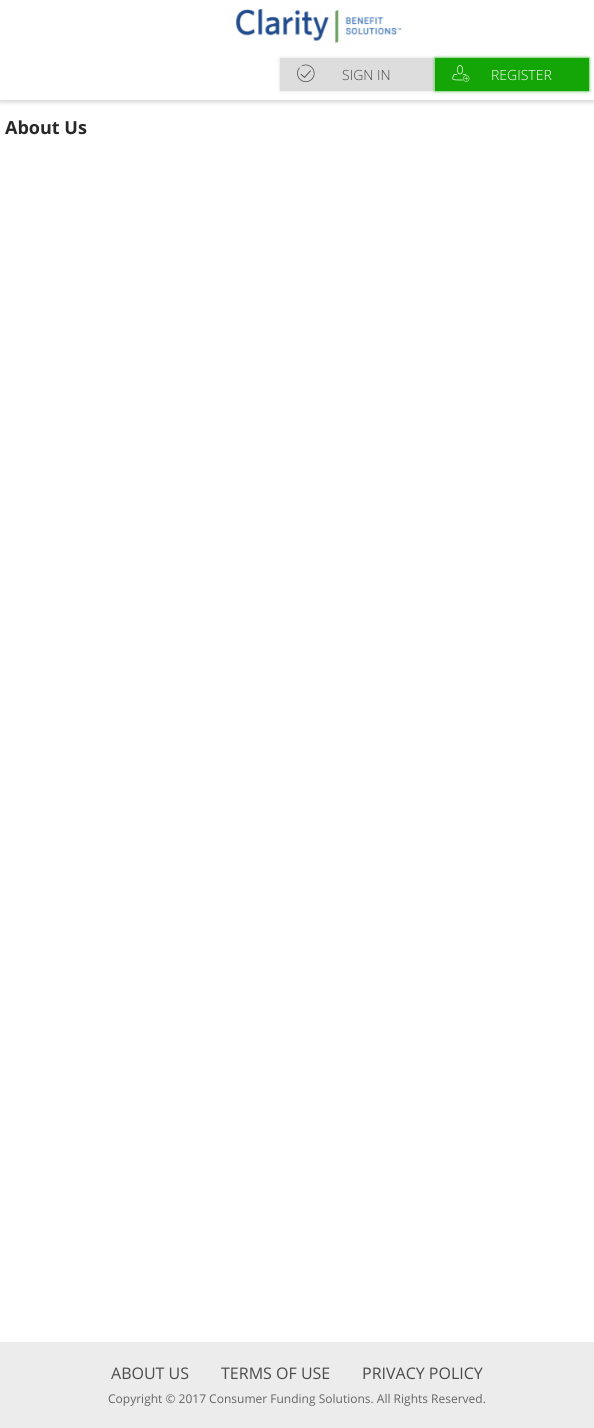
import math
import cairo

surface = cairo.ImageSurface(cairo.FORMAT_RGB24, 594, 1428)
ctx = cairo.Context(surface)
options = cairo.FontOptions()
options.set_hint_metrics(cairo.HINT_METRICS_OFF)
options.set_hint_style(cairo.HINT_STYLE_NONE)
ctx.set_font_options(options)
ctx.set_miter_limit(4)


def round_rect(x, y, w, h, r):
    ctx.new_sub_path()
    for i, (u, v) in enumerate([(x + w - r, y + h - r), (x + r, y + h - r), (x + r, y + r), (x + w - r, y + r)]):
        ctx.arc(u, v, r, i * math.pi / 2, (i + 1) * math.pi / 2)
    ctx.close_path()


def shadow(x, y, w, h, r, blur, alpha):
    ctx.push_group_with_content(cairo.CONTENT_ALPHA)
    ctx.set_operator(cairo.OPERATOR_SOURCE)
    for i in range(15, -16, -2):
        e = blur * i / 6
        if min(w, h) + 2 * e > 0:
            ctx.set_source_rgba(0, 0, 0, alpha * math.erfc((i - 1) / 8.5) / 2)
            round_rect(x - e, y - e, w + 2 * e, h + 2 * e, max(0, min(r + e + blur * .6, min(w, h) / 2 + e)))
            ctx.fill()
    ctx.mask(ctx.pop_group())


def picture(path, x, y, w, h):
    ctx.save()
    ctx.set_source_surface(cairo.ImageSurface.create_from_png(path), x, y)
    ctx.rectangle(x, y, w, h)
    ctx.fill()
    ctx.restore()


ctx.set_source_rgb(1, 1, 1)
ctx.paint()
ctx.save()
ctx.rectangle(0, 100, 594, 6)
ctx.clip()
ctx.set_source_rgb(0.392, 0.392, 0.392)
shadow(0, 2, 594, 100, 0, 2.5, 0.3)
ctx.restore()
picture("img1.png", 235, 9, 167, 34)
ctx.set_source_rgb(0.867, 0.867, 0.867)
shadow(280, 58, 154, 33, 0, 1.5, 1)
ctx.set_source_rgb(0.867, 0.867, 0.867)
ctx.rectangle(280, 58, 154, 33)
ctx.fill()
picture("img2.png", 297, 64, 18, 19)
ctx.select_font_face("Open Sans Light")
ctx.set_font_size(14)
ctx.set_source_rgb(0.29, 0.29, 0.29)
ctx.move_to(342, 80)
ctx.show_text("SIGN IN")
ctx.set_source_rgb(0.078, 0.651, 0.027)
shadow(435, 58, 154, 33, 0, 1.5, 1)
ctx.set_source_rgb(0.078, 0.651, 0.027)
ctx.rectangle(435, 58, 154, 33)
ctx.fill()
picture("img3.png", 452, 65, 18, 17)
ctx.set_source_rgb(1, 1, 1)
ctx.move_to(491, 80)
ctx.show_text("REGISTER")
ctx.select_font_face("Open Sans", cairo.FONT_SLANT_NORMAL, cairo.FONT_WEIGHT_BOLD)
ctx.set_font_size(18)
ctx.set_source_rgb(0.157, 0.157, 0.157)
ctx.move_to(5, 134)
ctx.show_text("About Us")
ctx.set_source_rgb(0.925, 0.925, 0.925)
ctx.rectangle(0, 1342, 594, 86)
ctx.fill()
ctx.select_font_face("Open Sans")
ctx.set_font_size(16)
ctx.set_source_rgb(0.29, 0.29, 0.29)
ctx.move_to(111, 1379)
ctx.show_text("ABOUT US")
ctx.move_to(221, 1379)
ctx.show_text("TERMS OF USE")
ctx.move_to(362, 1379)
ctx.show_text("PRIVACY POLICY")
ctx.set_font_size(12)
ctx.set_source_rgb(0.392, 0.392, 0.392)
ctx.move_to(108, 1403)
ctx.show_text("Copyright © 2017 Consumer Funding Solutions. All Rights Reserved.")
surface.write_to_png("page.png")
